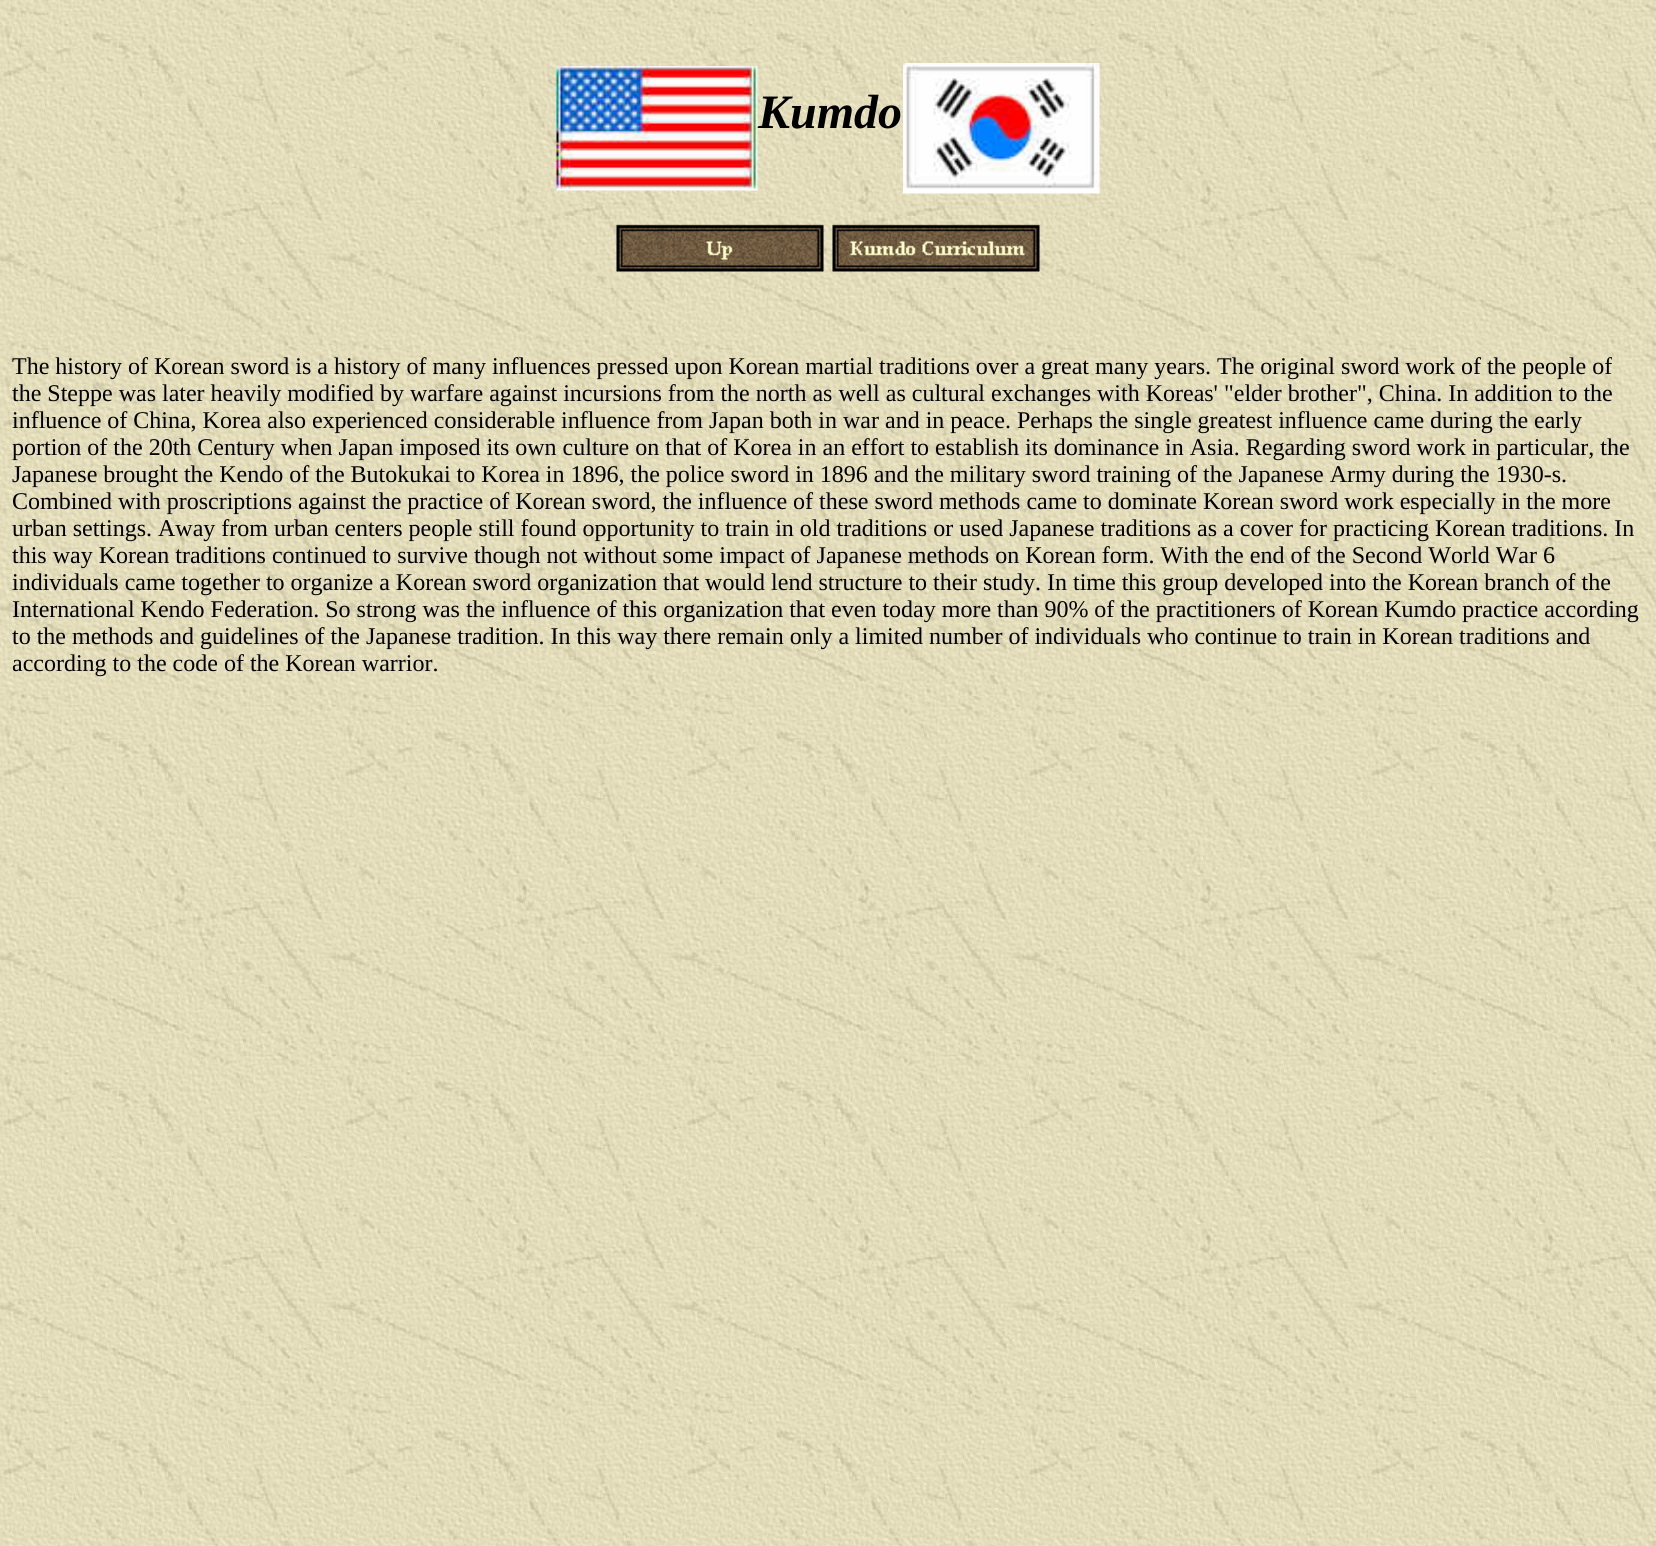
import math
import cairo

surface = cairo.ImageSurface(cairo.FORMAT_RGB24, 1656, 1546)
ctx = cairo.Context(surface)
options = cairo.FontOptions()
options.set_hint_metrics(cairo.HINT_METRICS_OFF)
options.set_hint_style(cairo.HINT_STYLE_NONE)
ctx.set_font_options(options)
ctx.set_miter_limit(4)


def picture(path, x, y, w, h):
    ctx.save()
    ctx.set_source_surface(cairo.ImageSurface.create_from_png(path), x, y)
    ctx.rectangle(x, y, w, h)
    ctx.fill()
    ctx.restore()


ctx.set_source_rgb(1, 1, 1)
ctx.paint()
picture("img1.png", 0, 0, 1656, 1546)
picture("img2.png", 556, 66, 202, 125)
ctx.select_font_face("Liberation Serif", cairo.FONT_SLANT_ITALIC, cairo.FONT_WEIGHT_BOLD)
ctx.set_font_size(48)
ctx.set_source_rgb(0, 0, 0)
ctx.move_to(758, 128)
ctx.show_text("Kumdo")
picture("img3.png", 903, 63, 197, 131)
picture("img4.png", 616, 224, 208, 48)
picture("img5.png", 832, 224, 208, 48)
ctx.select_font_face("Liberation Serif")
ctx.set_font_size(24)
ctx.move_to(12, 374)
ctx.show_text("The history of Korean sword is a history of many influences pressed upon Korean martial traditions over a great many years. The original sword work of the people of")
ctx.move_to(12, 401)
ctx.show_text("the Steppe was later heavily modified by warfare against incursions from the north as well as cultural exchanges with Koreas' \"elder brother\", China. In addition to the")
ctx.move_to(12, 428)
ctx.show_text("influence of China, Korea also experienced considerable influence from Japan both in war and in peace. Perhaps the single greatest influence came during the early")
ctx.move_to(12, 455)
ctx.show_text("portion of the 20th Century when Japan imposed its own culture on that of Korea in an effort to establish its dominance in Asia. Regarding sword work in particular, the")
ctx.move_to(12, 482)
ctx.show_text("Japanese brought the Kendo of the Butokukai to Korea in 1896, the police sword in 1896 and the military sword training of the Japanese Army during the 1930-s.")
ctx.move_to(12, 509)
ctx.show_text("Combined with proscriptions against the practice of Korean sword, the influence of these sword methods came to dominate Korean sword work especially in the more")
ctx.move_to(12, 536)
ctx.show_text("urban settings. Away from urban centers people still found opportunity to train in old traditions or used Japanese traditions as a cover for practicing Korean traditions. In")
ctx.move_to(12, 563)
ctx.show_text("this way Korean traditions continued to survive though not without some impact of Japanese methods on Korean form. With the end of the Second World War 6")
ctx.move_to(12, 590)
ctx.show_text("individuals came together to organize a Korean sword organization that would lend structure to their study. In time this group developed into the Korean branch of the")
ctx.move_to(12, 617)
ctx.show_text("International Kendo Federation. So strong was the influence of this organization that even today more than 90% of the practitioners of Korean Kumdo practice according")
ctx.move_to(12, 644)
ctx.show_text("to the methods and guidelines of the Japanese tradition. In this way there remain only a limited number of individuals who continue to train in Korean traditions and")
ctx.move_to(12, 671)
ctx.show_text("according to the code of the Korean warrior.")
surface.write_to_png("page.png")
